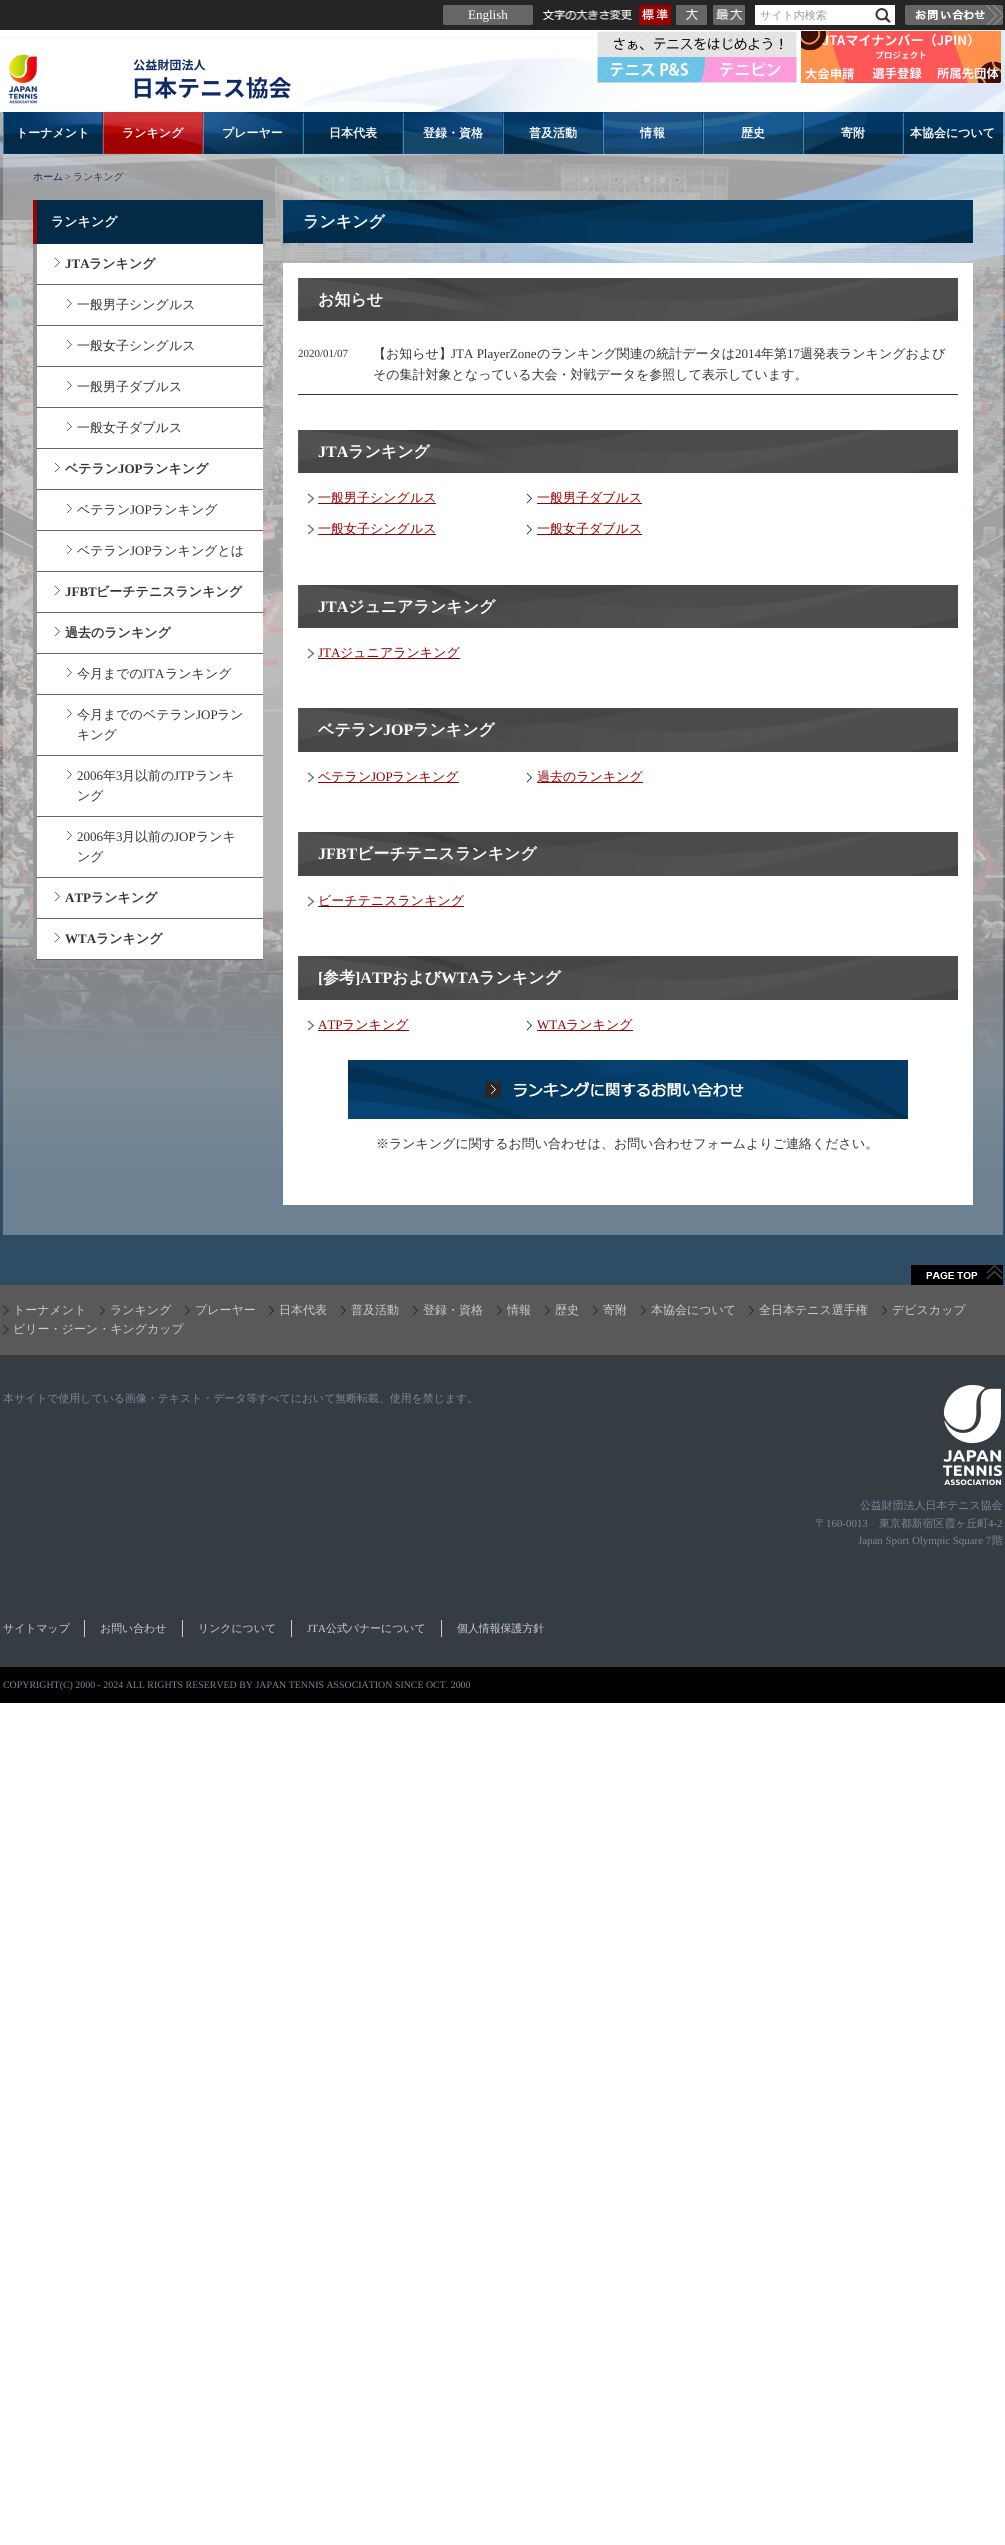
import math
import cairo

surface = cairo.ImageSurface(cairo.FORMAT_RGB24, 1005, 2545)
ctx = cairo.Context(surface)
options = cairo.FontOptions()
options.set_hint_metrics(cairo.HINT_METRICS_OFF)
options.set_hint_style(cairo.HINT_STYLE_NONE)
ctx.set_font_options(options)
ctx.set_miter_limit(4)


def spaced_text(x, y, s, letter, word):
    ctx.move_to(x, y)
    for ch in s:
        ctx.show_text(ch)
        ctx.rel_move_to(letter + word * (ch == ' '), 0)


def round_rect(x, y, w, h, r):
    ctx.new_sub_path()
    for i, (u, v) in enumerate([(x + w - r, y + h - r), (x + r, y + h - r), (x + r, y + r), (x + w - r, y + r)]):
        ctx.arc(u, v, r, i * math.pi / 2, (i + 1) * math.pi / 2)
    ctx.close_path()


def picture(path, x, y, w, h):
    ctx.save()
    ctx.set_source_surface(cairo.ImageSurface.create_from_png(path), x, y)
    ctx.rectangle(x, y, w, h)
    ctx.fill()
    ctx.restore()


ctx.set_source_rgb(1, 1, 1)
ctx.paint()
ctx.set_source_rgb(0.18, 0.302, 0.396)
ctx.rectangle(0, 557, 1005, 728)
ctx.fill()
picture("img1.png", 0, 112, 1005, 1056)
ctx.set_source_rgb(0.145, 0.145, 0.145)
ctx.rectangle(0, 0, 1005, 30)
ctx.fill()
ctx.set_source_rgb(0.4, 0.4, 0.4)
round_rect(443, 5, 90, 20, 2)
ctx.fill()
ctx.select_font_face("Liberation Serif")
ctx.set_font_size(13)
ctx.set_source_rgb(1, 1, 1)
ctx.move_to(468, 19)
ctx.show_text("English")
picture("img2.png", 543, 10, 89, 10)
picture("img3.png", 639, 5, 32, 20)
picture("img4.png", 676, 5, 31, 20)
picture("img5.png", 713, 5, 32, 20)
ctx.rectangle(755, 5, 140, 20)
ctx.fill()
ctx.select_font_face("WenQuanYi Zen Hei Medium")
ctx.set_font_size(11)
ctx.set_source_rgb(0.6, 0.6, 0.6)
ctx.move_to(760, 19)
ctx.show_text("サイト内検索")
picture("img6.png", 875, 8, 16, 15)
picture("img7.png", 905, 5, 98, 20)
picture("img22.png", 0, 112, 1005, 151)
picture("img8.png", 3, 112, 100, 42)
ctx.select_font_face("WenQuanYi Zen Hei", cairo.FONT_SLANT_NORMAL, cairo.FONT_WEIGHT_BOLD)
ctx.set_font_size(12)
ctx.set_source_rgb(1, 1, 1)
ctx.move_to(16, 137)
ctx.show_text("トーナメント")
picture("img9.png", 103, 112, 100, 42)
ctx.move_to(122, 137)
ctx.show_text("ランキング")
picture("img10.png", 203, 112, 100, 42)
ctx.move_to(222, 137)
ctx.show_text("プレーヤー")
picture("img11.png", 303, 112, 100, 42)
ctx.move_to(329, 137)
ctx.show_text("日本代表")
picture("img12.png", 403, 112, 100, 42)
ctx.move_to(423, 137)
ctx.show_text("登録・資格")
picture("img13.png", 503, 112, 100, 42)
ctx.move_to(529, 137)
ctx.show_text("普及活動")
picture("img14.png", 603, 112, 100, 42)
spaced_text(640, 137, "情報", 1, 0)
picture("img15.png", 703, 112, 100, 42)
ctx.move_to(741, 137)
ctx.show_text("歴史")
picture("img16.png", 803, 112, 100, 42)
ctx.move_to(841, 137)
ctx.show_text("寄附")
picture("img17.png", 903, 112, 100, 42)
ctx.move_to(910, 137)
ctx.show_text("本協会について")
picture("img18.png", 0, 30, 1005, 82)
ctx.rectangle(3, 107, 2, 2)
ctx.fill()
picture("img19.png", 8, 54, 295, 55)
picture("img20.png", 597, 31, 200, 52)
picture("img21.png", 801, 31, 200, 52)
ctx.set_source_rgba(1, 1, 1, 0.3)
ctx.rectangle(3, 154, 1000, 1081)
ctx.fill()
ctx.select_font_face("WenQuanYi Zen Hei Medium")
ctx.set_font_size(9.9)
ctx.set_source_rgb(0.027, 0.118, 0.302)
ctx.move_to(33, 180)
ctx.show_text("ホーム")
ctx.select_font_face("Liberation Serif")
ctx.set_source_rgb(0.2, 0.2, 0.2)
ctx.move_to(65, 180)
ctx.show_text(">")
ctx.select_font_face("WenQuanYi Zen Hei Medium")
ctx.move_to(73, 180)
ctx.show_text("ランキング")
ctx.set_source_rgb(0.012, 0.165, 0.278)
ctx.rectangle(37, 200, 226, 44)
ctx.fill()
ctx.set_source_rgb(0.604, 0.012, 0.012)
ctx.rectangle(33, 200, 4, 44)
ctx.fill()
ctx.select_font_face("WenQuanYi Zen Hei", cairo.FONT_SLANT_NORMAL, cairo.FONT_WEIGHT_BOLD)
ctx.set_font_size(13)
ctx.set_source_rgb(1, 1, 1)
ctx.move_to(51, 226)
ctx.show_text("ランキング")
ctx.rectangle(33, 244, 230, 716)
ctx.fill()
picture("img23.png", 55, 258, 5, 9)
ctx.set_source_rgb(0.4, 0.4, 0.4)
ctx.new_path()
ctx.move_to(263, 285)
ctx.line_to(33, 285)
ctx.line_to(37, 284)
ctx.line_to(263, 284)
ctx.close_path()
ctx.fill()
ctx.set_source_rgb(0.584, 0.584, 0.584)
ctx.new_path()
ctx.move_to(33, 285)
ctx.line_to(33, 244)
ctx.line_to(37, 244)
ctx.line_to(37, 284)
ctx.close_path()
ctx.fill()
ctx.select_font_face("Liberation Serif", cairo.FONT_SLANT_NORMAL, cairo.FONT_WEIGHT_BOLD)
ctx.set_source_rgb(0.2, 0.2, 0.2)
ctx.move_to(65, 268)
ctx.show_text("JTA")
ctx.select_font_face("WenQuanYi Zen Hei", cairo.FONT_SLANT_NORMAL, cairo.FONT_WEIGHT_BOLD)
ctx.move_to(89, 268)
ctx.show_text("ランキング")
picture("img23.png", 67, 299, 5, 9)
ctx.set_source_rgb(0.4, 0.4, 0.4)
ctx.new_path()
ctx.move_to(263, 326)
ctx.line_to(33, 326)
ctx.line_to(37, 325)
ctx.line_to(263, 325)
ctx.close_path()
ctx.fill()
ctx.set_source_rgb(0.584, 0.584, 0.584)
ctx.new_path()
ctx.move_to(33, 326)
ctx.line_to(33, 285)
ctx.line_to(37, 285)
ctx.line_to(37, 325)
ctx.close_path()
ctx.fill()
ctx.select_font_face("WenQuanYi Zen Hei Medium")
ctx.set_source_rgb(0.2, 0.2, 0.2)
ctx.move_to(77, 309)
ctx.show_text("一般男子シングルス")
picture("img23.png", 67, 340, 5, 9)
ctx.set_source_rgb(0.4, 0.4, 0.4)
ctx.new_path()
ctx.move_to(263, 367)
ctx.line_to(33, 367)
ctx.line_to(37, 366)
ctx.line_to(263, 366)
ctx.close_path()
ctx.fill()
ctx.set_source_rgb(0.584, 0.584, 0.584)
ctx.new_path()
ctx.move_to(33, 367)
ctx.line_to(33, 326)
ctx.line_to(37, 326)
ctx.line_to(37, 366)
ctx.close_path()
ctx.fill()
ctx.set_source_rgb(0.2, 0.2, 0.2)
ctx.move_to(77, 350)
ctx.show_text("一般女子シングルス")
picture("img23.png", 67, 381, 5, 9)
ctx.set_source_rgb(0.4, 0.4, 0.4)
ctx.new_path()
ctx.move_to(263, 408)
ctx.line_to(33, 408)
ctx.line_to(37, 407)
ctx.line_to(263, 407)
ctx.close_path()
ctx.fill()
ctx.set_source_rgb(0.584, 0.584, 0.584)
ctx.new_path()
ctx.move_to(33, 408)
ctx.line_to(33, 367)
ctx.line_to(37, 367)
ctx.line_to(37, 407)
ctx.close_path()
ctx.fill()
ctx.set_source_rgb(0.2, 0.2, 0.2)
ctx.move_to(77, 391)
ctx.show_text("一般男子ダブルス")
picture("img23.png", 67, 422, 5, 9)
ctx.set_source_rgb(0.4, 0.4, 0.4)
ctx.new_path()
ctx.move_to(263, 449)
ctx.line_to(33, 449)
ctx.line_to(37, 448)
ctx.line_to(263, 448)
ctx.close_path()
ctx.fill()
ctx.set_source_rgb(0.584, 0.584, 0.584)
ctx.new_path()
ctx.move_to(33, 449)
ctx.line_to(33, 408)
ctx.line_to(37, 408)
ctx.line_to(37, 448)
ctx.close_path()
ctx.fill()
ctx.set_source_rgb(0.2, 0.2, 0.2)
ctx.move_to(77, 432)
ctx.show_text("一般女子ダブルス")
picture("img23.png", 55, 463, 5, 9)
ctx.set_source_rgb(0.4, 0.4, 0.4)
ctx.new_path()
ctx.move_to(263, 490)
ctx.line_to(33, 490)
ctx.line_to(37, 489)
ctx.line_to(263, 489)
ctx.close_path()
ctx.fill()
ctx.set_source_rgb(0.584, 0.584, 0.584)
ctx.new_path()
ctx.move_to(33, 490)
ctx.line_to(33, 449)
ctx.line_to(37, 449)
ctx.line_to(37, 489)
ctx.close_path()
ctx.fill()
ctx.select_font_face("WenQuanYi Zen Hei", cairo.FONT_SLANT_NORMAL, cairo.FONT_WEIGHT_BOLD)
ctx.set_source_rgb(0.2, 0.2, 0.2)
ctx.move_to(65, 473)
ctx.show_text("ベテラン")
ctx.select_font_face("Liberation Serif", cairo.FONT_SLANT_NORMAL, cairo.FONT_WEIGHT_BOLD)
ctx.move_to(118, 473)
ctx.show_text("JOP")
ctx.select_font_face("WenQuanYi Zen Hei", cairo.FONT_SLANT_NORMAL, cairo.FONT_WEIGHT_BOLD)
ctx.move_to(142, 473)
ctx.show_text("ランキング")
picture("img23.png", 67, 504, 5, 9)
ctx.set_source_rgb(0.4, 0.4, 0.4)
ctx.new_path()
ctx.move_to(263, 531)
ctx.line_to(33, 531)
ctx.line_to(37, 530)
ctx.line_to(263, 530)
ctx.close_path()
ctx.fill()
ctx.set_source_rgb(0.584, 0.584, 0.584)
ctx.new_path()
ctx.move_to(33, 531)
ctx.line_to(33, 490)
ctx.line_to(37, 490)
ctx.line_to(37, 530)
ctx.close_path()
ctx.fill()
ctx.select_font_face("WenQuanYi Zen Hei Medium")
ctx.set_source_rgb(0.2, 0.2, 0.2)
ctx.move_to(77, 514)
ctx.show_text("ベテラン")
ctx.select_font_face("Liberation Serif")
ctx.move_to(130, 514)
ctx.show_text("JOP")
ctx.select_font_face("WenQuanYi Zen Hei Medium")
ctx.move_to(151, 514)
ctx.show_text("ランキング")
picture("img23.png", 67, 545, 5, 9)
ctx.set_source_rgb(0.4, 0.4, 0.4)
ctx.new_path()
ctx.move_to(263, 572)
ctx.line_to(33, 572)
ctx.line_to(37, 571)
ctx.line_to(263, 571)
ctx.close_path()
ctx.fill()
ctx.set_source_rgb(0.584, 0.584, 0.584)
ctx.new_path()
ctx.move_to(33, 572)
ctx.line_to(33, 531)
ctx.line_to(37, 531)
ctx.line_to(37, 571)
ctx.close_path()
ctx.fill()
ctx.set_source_rgb(0.2, 0.2, 0.2)
ctx.move_to(77, 555)
ctx.show_text("ベテラン")
ctx.select_font_face("Liberation Serif")
ctx.move_to(130, 555)
ctx.show_text("JOP")
ctx.select_font_face("WenQuanYi Zen Hei Medium")
ctx.move_to(151, 555)
ctx.show_text("ランキングとは")
picture("img23.png", 55, 586, 5, 9)
ctx.set_source_rgb(0.4, 0.4, 0.4)
ctx.new_path()
ctx.move_to(263, 613)
ctx.line_to(33, 613)
ctx.line_to(37, 612)
ctx.line_to(263, 612)
ctx.close_path()
ctx.fill()
ctx.set_source_rgb(0.584, 0.584, 0.584)
ctx.new_path()
ctx.move_to(33, 613)
ctx.line_to(33, 572)
ctx.line_to(37, 572)
ctx.line_to(37, 612)
ctx.close_path()
ctx.fill()
ctx.select_font_face("Liberation Serif", cairo.FONT_SLANT_NORMAL, cairo.FONT_WEIGHT_BOLD)
ctx.set_source_rgb(0.2, 0.2, 0.2)
ctx.move_to(65, 596)
ctx.show_text("JFBT")
ctx.select_font_face("WenQuanYi Zen Hei", cairo.FONT_SLANT_NORMAL, cairo.FONT_WEIGHT_BOLD)
ctx.move_to(96, 596)
ctx.show_text("ビーチテニスランキング")
picture("img23.png", 55, 627, 5, 9)
ctx.set_source_rgb(0.4, 0.4, 0.4)
ctx.new_path()
ctx.move_to(263, 654)
ctx.line_to(33, 654)
ctx.line_to(37, 653)
ctx.line_to(263, 653)
ctx.close_path()
ctx.fill()
ctx.set_source_rgb(0.584, 0.584, 0.584)
ctx.new_path()
ctx.move_to(33, 654)
ctx.line_to(33, 613)
ctx.line_to(37, 613)
ctx.line_to(37, 653)
ctx.close_path()
ctx.fill()
ctx.set_source_rgb(0.2, 0.2, 0.2)
ctx.move_to(65, 637)
ctx.show_text("過去のランキング")
picture("img23.png", 67, 668, 5, 9)
ctx.set_source_rgb(0.4, 0.4, 0.4)
ctx.new_path()
ctx.move_to(263, 695)
ctx.line_to(33, 695)
ctx.line_to(37, 694)
ctx.line_to(263, 694)
ctx.close_path()
ctx.fill()
ctx.set_source_rgb(0.584, 0.584, 0.584)
ctx.new_path()
ctx.move_to(33, 695)
ctx.line_to(33, 654)
ctx.line_to(37, 654)
ctx.line_to(37, 694)
ctx.close_path()
ctx.fill()
ctx.select_font_face("WenQuanYi Zen Hei Medium")
ctx.set_source_rgb(0.2, 0.2, 0.2)
ctx.move_to(77, 678)
ctx.show_text("今月までの")
ctx.select_font_face("Liberation Serif")
ctx.move_to(142, 678)
ctx.show_text("JTA")
ctx.select_font_face("WenQuanYi Zen Hei Medium")
ctx.move_to(165, 678)
ctx.show_text("ランキング")
picture("img23.png", 67, 709, 5, 9)
ctx.set_source_rgb(0.4, 0.4, 0.4)
ctx.new_path()
ctx.move_to(263, 756)
ctx.line_to(33, 756)
ctx.line_to(37, 755)
ctx.line_to(263, 755)
ctx.close_path()
ctx.fill()
ctx.set_source_rgb(0.584, 0.584, 0.584)
ctx.new_path()
ctx.move_to(33, 756)
ctx.line_to(33, 695)
ctx.line_to(37, 695)
ctx.line_to(37, 755)
ctx.close_path()
ctx.fill()
ctx.set_source_rgb(0.2, 0.2, 0.2)
ctx.move_to(77, 719)
ctx.show_text("今月までのベテラン")
ctx.select_font_face("Liberation Serif")
ctx.move_to(196, 719)
ctx.show_text("JOP")
ctx.select_font_face("WenQuanYi Zen Hei Medium")
ctx.move_to(217, 719)
ctx.show_text("ラン")
ctx.move_to(77, 739)
ctx.show_text("キング")
picture("img23.png", 67, 770, 5, 9)
ctx.set_source_rgb(0.4, 0.4, 0.4)
ctx.new_path()
ctx.move_to(263, 817)
ctx.line_to(33, 817)
ctx.line_to(37, 816)
ctx.line_to(263, 816)
ctx.close_path()
ctx.fill()
ctx.set_source_rgb(0.584, 0.584, 0.584)
ctx.new_path()
ctx.move_to(33, 817)
ctx.line_to(33, 756)
ctx.line_to(37, 756)
ctx.line_to(37, 816)
ctx.close_path()
ctx.fill()
ctx.select_font_face("Liberation Serif")
ctx.set_source_rgb(0.2, 0.2, 0.2)
ctx.move_to(77, 780)
ctx.show_text("2006")
ctx.select_font_face("WenQuanYi Zen Hei Medium")
ctx.move_to(103, 780)
ctx.show_text("年")
ctx.select_font_face("Liberation Serif")
ctx.move_to(116, 780)
ctx.show_text("3")
ctx.select_font_face("WenQuanYi Zen Hei Medium")
ctx.move_to(122, 780)
ctx.show_text("月以前の")
ctx.select_font_face("Liberation Serif")
ctx.move_to(174, 780)
ctx.show_text("JTP")
ctx.select_font_face("WenQuanYi Zen Hei Medium")
ctx.move_to(195, 780)
ctx.show_text("ランキ")
ctx.move_to(77, 800)
ctx.show_text("ング")
picture("img23.png", 67, 831, 5, 9)
ctx.set_source_rgb(0.4, 0.4, 0.4)
ctx.new_path()
ctx.move_to(263, 878)
ctx.line_to(33, 878)
ctx.line_to(37, 877)
ctx.line_to(263, 877)
ctx.close_path()
ctx.fill()
ctx.set_source_rgb(0.584, 0.584, 0.584)
ctx.new_path()
ctx.move_to(33, 878)
ctx.line_to(33, 817)
ctx.line_to(37, 817)
ctx.line_to(37, 877)
ctx.close_path()
ctx.fill()
ctx.select_font_face("Liberation Serif")
ctx.set_source_rgb(0.2, 0.2, 0.2)
ctx.move_to(77, 841)
ctx.show_text("2006")
ctx.select_font_face("WenQuanYi Zen Hei Medium")
ctx.move_to(103, 841)
ctx.show_text("年")
ctx.select_font_face("Liberation Serif")
ctx.move_to(116, 841)
ctx.show_text("3")
ctx.select_font_face("WenQuanYi Zen Hei Medium")
ctx.move_to(122, 841)
ctx.show_text("月以前の")
ctx.select_font_face("Liberation Serif")
ctx.move_to(174, 841)
ctx.show_text("JOP")
ctx.select_font_face("WenQuanYi Zen Hei Medium")
ctx.move_to(196, 841)
ctx.show_text("ランキ")
ctx.move_to(77, 861)
ctx.show_text("ング")
picture("img23.png", 55, 892, 5, 9)
ctx.set_source_rgb(0.4, 0.4, 0.4)
ctx.new_path()
ctx.move_to(263, 919)
ctx.line_to(33, 919)
ctx.line_to(37, 918)
ctx.line_to(263, 918)
ctx.close_path()
ctx.fill()
ctx.set_source_rgb(0.584, 0.584, 0.584)
ctx.new_path()
ctx.move_to(33, 919)
ctx.line_to(33, 878)
ctx.line_to(37, 878)
ctx.line_to(37, 918)
ctx.close_path()
ctx.fill()
ctx.select_font_face("Liberation Serif", cairo.FONT_SLANT_NORMAL, cairo.FONT_WEIGHT_BOLD)
ctx.set_source_rgb(0.2, 0.2, 0.2)
ctx.move_to(65, 902)
ctx.show_text("ATP")
ctx.select_font_face("WenQuanYi Zen Hei", cairo.FONT_SLANT_NORMAL, cairo.FONT_WEIGHT_BOLD)
ctx.move_to(91, 902)
ctx.show_text("ランキング")
picture("img23.png", 55, 933, 5, 9)
ctx.set_source_rgb(0.4, 0.4, 0.4)
ctx.new_path()
ctx.move_to(263, 960)
ctx.line_to(33, 960)
ctx.line_to(37, 959)
ctx.line_to(263, 959)
ctx.close_path()
ctx.fill()
ctx.set_source_rgb(0.584, 0.584, 0.584)
ctx.new_path()
ctx.move_to(33, 960)
ctx.line_to(33, 919)
ctx.line_to(37, 919)
ctx.line_to(37, 959)
ctx.close_path()
ctx.fill()
ctx.select_font_face("Liberation Serif", cairo.FONT_SLANT_NORMAL, cairo.FONT_WEIGHT_BOLD)
ctx.set_source_rgb(0.2, 0.2, 0.2)
ctx.move_to(65, 943)
ctx.show_text("WTA")
ctx.select_font_face("WenQuanYi Zen Hei", cairo.FONT_SLANT_NORMAL, cairo.FONT_WEIGHT_BOLD)
ctx.move_to(96, 943)
ctx.show_text("ランキング")
picture("img24.png", 283, 200, 690, 43)
ctx.set_font_size(16)
ctx.set_source_rgb(1, 1, 1)
ctx.move_to(303, 227)
ctx.show_text("ランキング")
ctx.rectangle(283, 263, 690, 942)
ctx.fill()
picture("img25.png", 298, 278, 660, 43)
ctx.move_to(318, 305)
ctx.show_text("お知らせ")
ctx.set_source_rgb(0.2, 0.2, 0.2)
ctx.rectangle(298, 394, 660, 1)
ctx.fill()
ctx.select_font_face("Liberation Serif")
ctx.set_font_size(11)
ctx.move_to(298, 357)
ctx.show_text("2020/01/07")
ctx.select_font_face("WenQuanYi Zen Hei Medium")
ctx.set_font_size(13)
ctx.move_to(373, 358)
ctx.show_text("【お知らせ】")
ctx.select_font_face("Liberation Serif")
ctx.move_to(451, 358)
ctx.show_text("JTA PlayerZone")
ctx.select_font_face("WenQuanYi Zen Hei Medium")
ctx.move_to(537, 358)
ctx.show_text("のランキング関連の統計データは")
ctx.select_font_face("Liberation Serif")
ctx.move_to(735, 358)
ctx.show_text("2014")
ctx.select_font_face("WenQuanYi Zen Hei Medium")
ctx.move_to(761, 358)
ctx.show_text("年第")
ctx.select_font_face("Liberation Serif")
ctx.move_to(787, 358)
ctx.show_text("17")
ctx.select_font_face("WenQuanYi Zen Hei Medium")
ctx.move_to(800, 358)
ctx.show_text("週発表ランキングおよび")
ctx.move_to(373, 379)
ctx.show_text("その集計対象となっている大会・対戦データを参照して表示しています。")
picture("img25.png", 298, 430, 660, 43)
ctx.select_font_face("Liberation Serif", cairo.FONT_SLANT_NORMAL, cairo.FONT_WEIGHT_BOLD)
ctx.set_font_size(16)
ctx.set_source_rgb(1, 1, 1)
ctx.move_to(318, 457)
ctx.show_text("JTA")
ctx.select_font_face("WenQuanYi Zen Hei", cairo.FONT_SLANT_NORMAL, cairo.FONT_WEIGHT_BOLD)
ctx.move_to(348, 457)
ctx.show_text("ランキング")
picture("img26.png", 308, 493, 6, 11)
ctx.set_source_rgb(0.6, 0, 0)
ctx.rectangle(318, 503, 118, 1)
ctx.fill()
ctx.select_font_face("WenQuanYi Zen Hei Medium")
ctx.set_font_size(13)
ctx.move_to(318, 502)
ctx.show_text("一般男子シングルス")
picture("img27.png", 527, 493, 5, 11)
ctx.rectangle(537, 503, 105, 1)
ctx.fill()
ctx.move_to(537, 502)
ctx.show_text("一般男子ダブルス")
picture("img26.png", 308, 524, 6, 11)
ctx.rectangle(318, 534, 118, 1)
ctx.fill()
ctx.move_to(318, 533)
ctx.show_text("一般女子シングルス")
picture("img27.png", 527, 524, 5, 11)
ctx.rectangle(537, 534, 105, 1)
ctx.fill()
ctx.move_to(537, 533)
ctx.show_text("一般女子ダブルス")
picture("img25.png", 298, 585, 660, 43)
ctx.select_font_face("Liberation Serif", cairo.FONT_SLANT_NORMAL, cairo.FONT_WEIGHT_BOLD)
ctx.set_font_size(16)
ctx.set_source_rgb(1, 1, 1)
ctx.move_to(318, 612)
ctx.show_text("JTA")
ctx.select_font_face("WenQuanYi Zen Hei", cairo.FONT_SLANT_NORMAL, cairo.FONT_WEIGHT_BOLD)
ctx.move_to(348, 612)
ctx.show_text("ジュニアランキング")
picture("img26.png", 308, 648, 6, 11)
ctx.select_font_face("Liberation Serif")
ctx.set_font_size(13)
ctx.set_source_rgb(0.6, 0, 0)
ctx.move_to(318, 657)
ctx.show_text("JTA")
ctx.rectangle(318, 658, 142, 1)
ctx.fill()
ctx.select_font_face("WenQuanYi Zen Hei Medium")
ctx.move_to(340, 657)
ctx.show_text("ジュニアランキング")
picture("img28.png", 298, 708, 660, 44)
ctx.select_font_face("WenQuanYi Zen Hei", cairo.FONT_SLANT_NORMAL, cairo.FONT_WEIGHT_BOLD)
ctx.set_font_size(16)
ctx.set_source_rgb(1, 1, 1)
ctx.move_to(318, 735)
ctx.show_text("ベテラン")
ctx.select_font_face("Liberation Serif", cairo.FONT_SLANT_NORMAL, cairo.FONT_WEIGHT_BOLD)
ctx.move_to(383, 735)
ctx.show_text("JOP")
ctx.select_font_face("WenQuanYi Zen Hei", cairo.FONT_SLANT_NORMAL, cairo.FONT_WEIGHT_BOLD)
ctx.move_to(413, 735)
ctx.show_text("ランキング")
picture("img26.png", 308, 772, 6, 11)
ctx.set_source_rgb(0.6, 0, 0)
ctx.rectangle(318, 782, 141, 1)
ctx.fill()
ctx.select_font_face("WenQuanYi Zen Hei Medium")
ctx.set_font_size(13)
ctx.move_to(318, 781)
ctx.show_text("ベテラン")
ctx.select_font_face("Liberation Serif")
ctx.move_to(371, 781)
ctx.show_text("JOP")
ctx.select_font_face("WenQuanYi Zen Hei Medium")
ctx.move_to(392, 781)
ctx.show_text("ランキング")
picture("img27.png", 527, 772, 5, 11)
ctx.rectangle(537, 782, 106, 1)
ctx.fill()
ctx.move_to(537, 781)
ctx.show_text("過去のランキング")
picture("img28.png", 298, 832, 660, 44)
ctx.select_font_face("Liberation Serif", cairo.FONT_SLANT_NORMAL, cairo.FONT_WEIGHT_BOLD)
ctx.set_font_size(16)
ctx.set_source_rgb(1, 1, 1)
ctx.move_to(318, 859)
ctx.show_text("JFBT")
ctx.select_font_face("WenQuanYi Zen Hei", cairo.FONT_SLANT_NORMAL, cairo.FONT_WEIGHT_BOLD)
ctx.move_to(357, 859)
ctx.show_text("ビーチテニスランキング")
picture("img26.png", 308, 896, 6, 11)
ctx.set_source_rgb(0.6, 0, 0)
ctx.rectangle(318, 906, 146, 1)
ctx.fill()
ctx.select_font_face("WenQuanYi Zen Hei Medium")
ctx.set_font_size(13)
ctx.move_to(318, 905)
ctx.show_text("ビーチテニスランキング")
picture("img28.png", 298, 956, 660, 44)
ctx.select_font_face("Liberation Serif", cairo.FONT_SLANT_NORMAL, cairo.FONT_WEIGHT_BOLD)
ctx.set_font_size(16)
ctx.set_source_rgb(1, 1, 1)
ctx.move_to(318, 983)
ctx.show_text("[")
ctx.select_font_face("WenQuanYi Zen Hei", cairo.FONT_SLANT_NORMAL, cairo.FONT_WEIGHT_BOLD)
ctx.move_to(323, 983)
ctx.show_text("参考")
ctx.select_font_face("Liberation Serif", cairo.FONT_SLANT_NORMAL, cairo.FONT_WEIGHT_BOLD)
ctx.move_to(355, 983)
ctx.show_text("]ATP")
ctx.select_font_face("WenQuanYi Zen Hei", cairo.FONT_SLANT_NORMAL, cairo.FONT_WEIGHT_BOLD)
ctx.move_to(392, 983)
ctx.show_text("および")
ctx.select_font_face("Liberation Serif", cairo.FONT_SLANT_NORMAL, cairo.FONT_WEIGHT_BOLD)
ctx.move_to(441, 983)
ctx.show_text("WTA")
ctx.select_font_face("WenQuanYi Zen Hei", cairo.FONT_SLANT_NORMAL, cairo.FONT_WEIGHT_BOLD)
ctx.move_to(479, 983)
ctx.show_text("ランキング")
picture("img26.png", 308, 1020, 6, 11)
ctx.select_font_face("Liberation Serif")
ctx.set_font_size(13)
ctx.set_source_rgb(0.6, 0, 0)
ctx.move_to(318, 1029)
ctx.show_text("ATP")
ctx.rectangle(318, 1030, 91, 1)
ctx.fill()
ctx.select_font_face("WenQuanYi Zen Hei Medium")
ctx.move_to(342, 1029)
ctx.show_text("ランキング")
picture("img27.png", 527, 1020, 5, 11)
ctx.select_font_face("Liberation Serif")
ctx.move_to(537, 1029)
ctx.show_text("WTA")
ctx.rectangle(537, 1030, 96, 1)
ctx.fill()
ctx.select_font_face("WenQuanYi Zen Hei Medium")
ctx.move_to(566, 1029)
ctx.show_text("ランキング")
picture("img29.png", 348, 1060, 560, 59)
ctx.set_source_rgb(0.2, 0.2, 0.2)
ctx.move_to(376, 1148)
ctx.show_text("※ランキングに関するお問い合わせは、お問い合わせフォームよりご連絡ください。")
picture("img30.png", 911, 1265, 92, 20)
ctx.set_source_rgb(0.349, 0.349, 0.349)
ctx.rectangle(0, 1285, 1005, 70)
ctx.fill()
picture("img31.png", 3, 1305, 6, 11)
ctx.set_font_size(12)
ctx.set_source_rgb(0.8, 0.8, 0.8)
ctx.move_to(13, 1314)
ctx.show_text("トーナメント")
picture("img32.png", 100, 1305, 5, 11)
ctx.move_to(110, 1314)
ctx.show_text("ランキング")
picture("img32.png", 185, 1305, 5, 11)
ctx.move_to(195, 1314)
ctx.show_text("プレーヤー")
picture("img32.png", 269, 1305, 5, 11)
ctx.move_to(279, 1314)
ctx.show_text("日本代表")
picture("img32.png", 341, 1305, 5, 11)
ctx.move_to(351, 1314)
ctx.show_text("普及活動")
picture("img32.png", 413, 1305, 5, 11)
ctx.move_to(423, 1314)
ctx.show_text("登録・資格")
picture("img32.png", 497, 1305, 5, 11)
ctx.move_to(507, 1314)
ctx.show_text("情報")
picture("img32.png", 545, 1305, 5, 11)
ctx.move_to(555, 1314)
ctx.show_text("歴史")
picture("img32.png", 593, 1305, 5, 11)
ctx.move_to(603, 1314)
ctx.show_text("寄附")
picture("img32.png", 641, 1305, 5, 11)
ctx.move_to(651, 1314)
ctx.show_text("本協会について")
picture("img32.png", 749, 1305, 5, 11)
ctx.move_to(759, 1314)
ctx.show_text("全日本テニス選手権")
picture("img32.png", 882, 1305, 5, 11)
ctx.move_to(892, 1314)
ctx.show_text("デビスカップ")
picture("img31.png", 3, 1324, 6, 11)
ctx.move_to(13, 1333)
ctx.show_text("ビリー・ジーン・キングカップ")
ctx.set_source_rgb(0.212, 0.239, 0.259)
ctx.rectangle(0, 1355, 1005, 312)
ctx.fill()
ctx.set_font_size(10.9)
ctx.set_source_rgb(0.467, 0.533, 0.6)
ctx.move_to(3, 1402)
ctx.show_text("本サイトで使用している画像・テキスト・データ等すべてにおいて無断転載、使用を禁じます。")
picture("img33.png", 943, 1385, 59, 100)
ctx.move_to(860, 1509)
ctx.show_text("公益財団法人日本テニス協会")
ctx.move_to(815, 1527)
ctx.show_text("〒")
ctx.select_font_face("Liberation Serif")
ctx.move_to(826, 1527)
ctx.show_text("160-0013")
ctx.select_font_face("WenQuanYi Zen Hei Medium")
ctx.move_to(879, 1527)
ctx.show_text("東京都新宿区霞ヶ丘町")
ctx.select_font_face("Liberation Serif")
ctx.move_to(988, 1527)
ctx.show_text("4-2")
ctx.move_to(858, 1544)
ctx.show_text("Japan Sport Olympic Square 7")
ctx.select_font_face("WenQuanYi Zen Hei Medium")
ctx.move_to(992, 1544)
ctx.show_text("階")
ctx.set_source_rgb(0.8, 0.8, 0.8)
ctx.move_to(3, 1632)
ctx.show_text("サイトマップ")
ctx.rectangle(84, 1620, 1, 17)
ctx.fill()
ctx.move_to(100, 1632)
ctx.show_text("お問い合わせ")
ctx.rectangle(182, 1620, 1, 17)
ctx.fill()
ctx.move_to(198, 1632)
ctx.show_text("リンクについて")
ctx.rectangle(291, 1620, 1, 17)
ctx.fill()
ctx.select_font_face("Liberation Serif")
ctx.move_to(307, 1632)
ctx.show_text("JTA")
ctx.select_font_face("WenQuanYi Zen Hei Medium")
ctx.move_to(326, 1632)
ctx.show_text("公式バナーについて")
ctx.rectangle(441, 1620, 1, 17)
ctx.fill()
ctx.move_to(457, 1632)
ctx.show_text("個人情報保護方針")
ctx.set_source_rgb(0, 0, 0)
ctx.rectangle(0, 1667, 1005, 36)
ctx.fill()
ctx.select_font_face("Liberation Serif")
ctx.set_font_size(9.9)
ctx.set_source_rgb(0.467, 0.533, 0.6)
ctx.move_to(3, 1688)
ctx.show_text("COPYRIGHT(C) 2000 - 2024 ALL RIGHTS RESERVED BY JAPAN TENNIS ASSOCIATION SINCE OCT. 2000")
surface.write_to_png("page.png")
